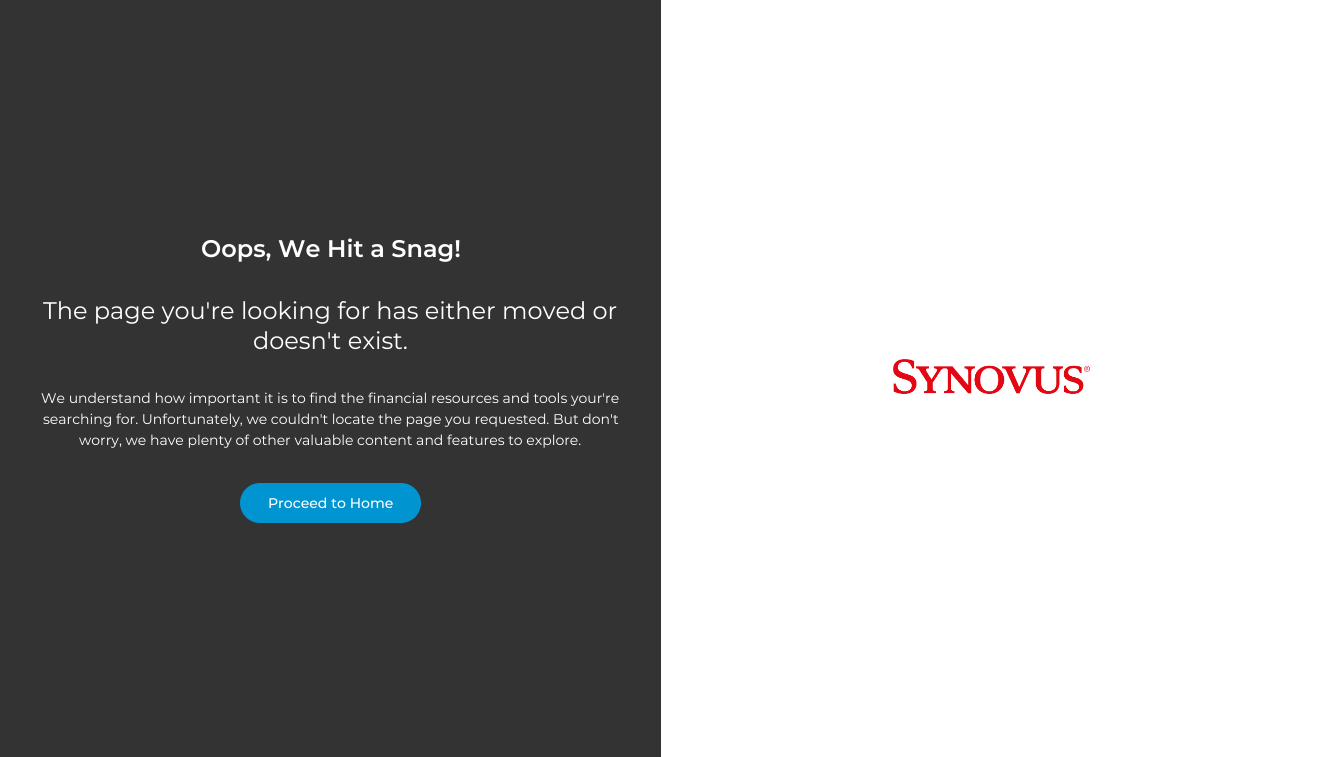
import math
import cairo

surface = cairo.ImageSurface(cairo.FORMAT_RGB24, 1322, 757)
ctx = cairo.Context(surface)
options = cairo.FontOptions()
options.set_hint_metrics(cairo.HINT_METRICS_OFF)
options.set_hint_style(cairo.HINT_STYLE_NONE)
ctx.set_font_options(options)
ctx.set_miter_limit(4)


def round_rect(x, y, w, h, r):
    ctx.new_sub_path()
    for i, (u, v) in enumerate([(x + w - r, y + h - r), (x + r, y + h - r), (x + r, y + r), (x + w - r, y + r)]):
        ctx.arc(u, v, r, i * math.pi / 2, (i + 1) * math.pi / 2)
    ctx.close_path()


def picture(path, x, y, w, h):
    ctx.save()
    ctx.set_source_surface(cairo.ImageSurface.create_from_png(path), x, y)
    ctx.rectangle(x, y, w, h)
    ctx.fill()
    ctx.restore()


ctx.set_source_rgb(1, 1, 1)
ctx.paint()
ctx.set_source_rgb(0.2, 0.2, 0.2)
ctx.rectangle(0, 0, 661, 757)
ctx.fill()
ctx.select_font_face("Montserrat SemiBold")
ctx.set_font_size(24)
ctx.set_source_rgb(1, 1, 1)
ctx.move_to(201, 257)
ctx.show_text("Oops, We Hit a Snag!")
ctx.select_font_face("Montserrat")
ctx.move_to(43, 319)
ctx.show_text("The page you're looking for has either moved or")
ctx.move_to(253, 349)
ctx.show_text("doesn't exist.")
ctx.set_font_size(14)
ctx.move_to(41, 403)
ctx.show_text("We understand how important it is to find the financial resources and tools your're")
ctx.move_to(43, 424)
ctx.show_text("searching for. Unfortunately, we couldn't locate the page you requested. But don't")
ctx.move_to(79, 445)
ctx.show_text("worry, we have plenty of other valuable content and features to explore.")
ctx.set_source_rgb(0, 0.58, 0.82)
round_rect(240, 483, 181, 40, 20)
ctx.fill()
ctx.select_font_face("Montserrat Medium")
ctx.set_source_rgb(1, 1, 1)
ctx.move_to(268, 508)
ctx.show_text("Proceed to Home")
picture("img1.png", 893, 359, 197, 36)
surface.write_to_png("page.png")
